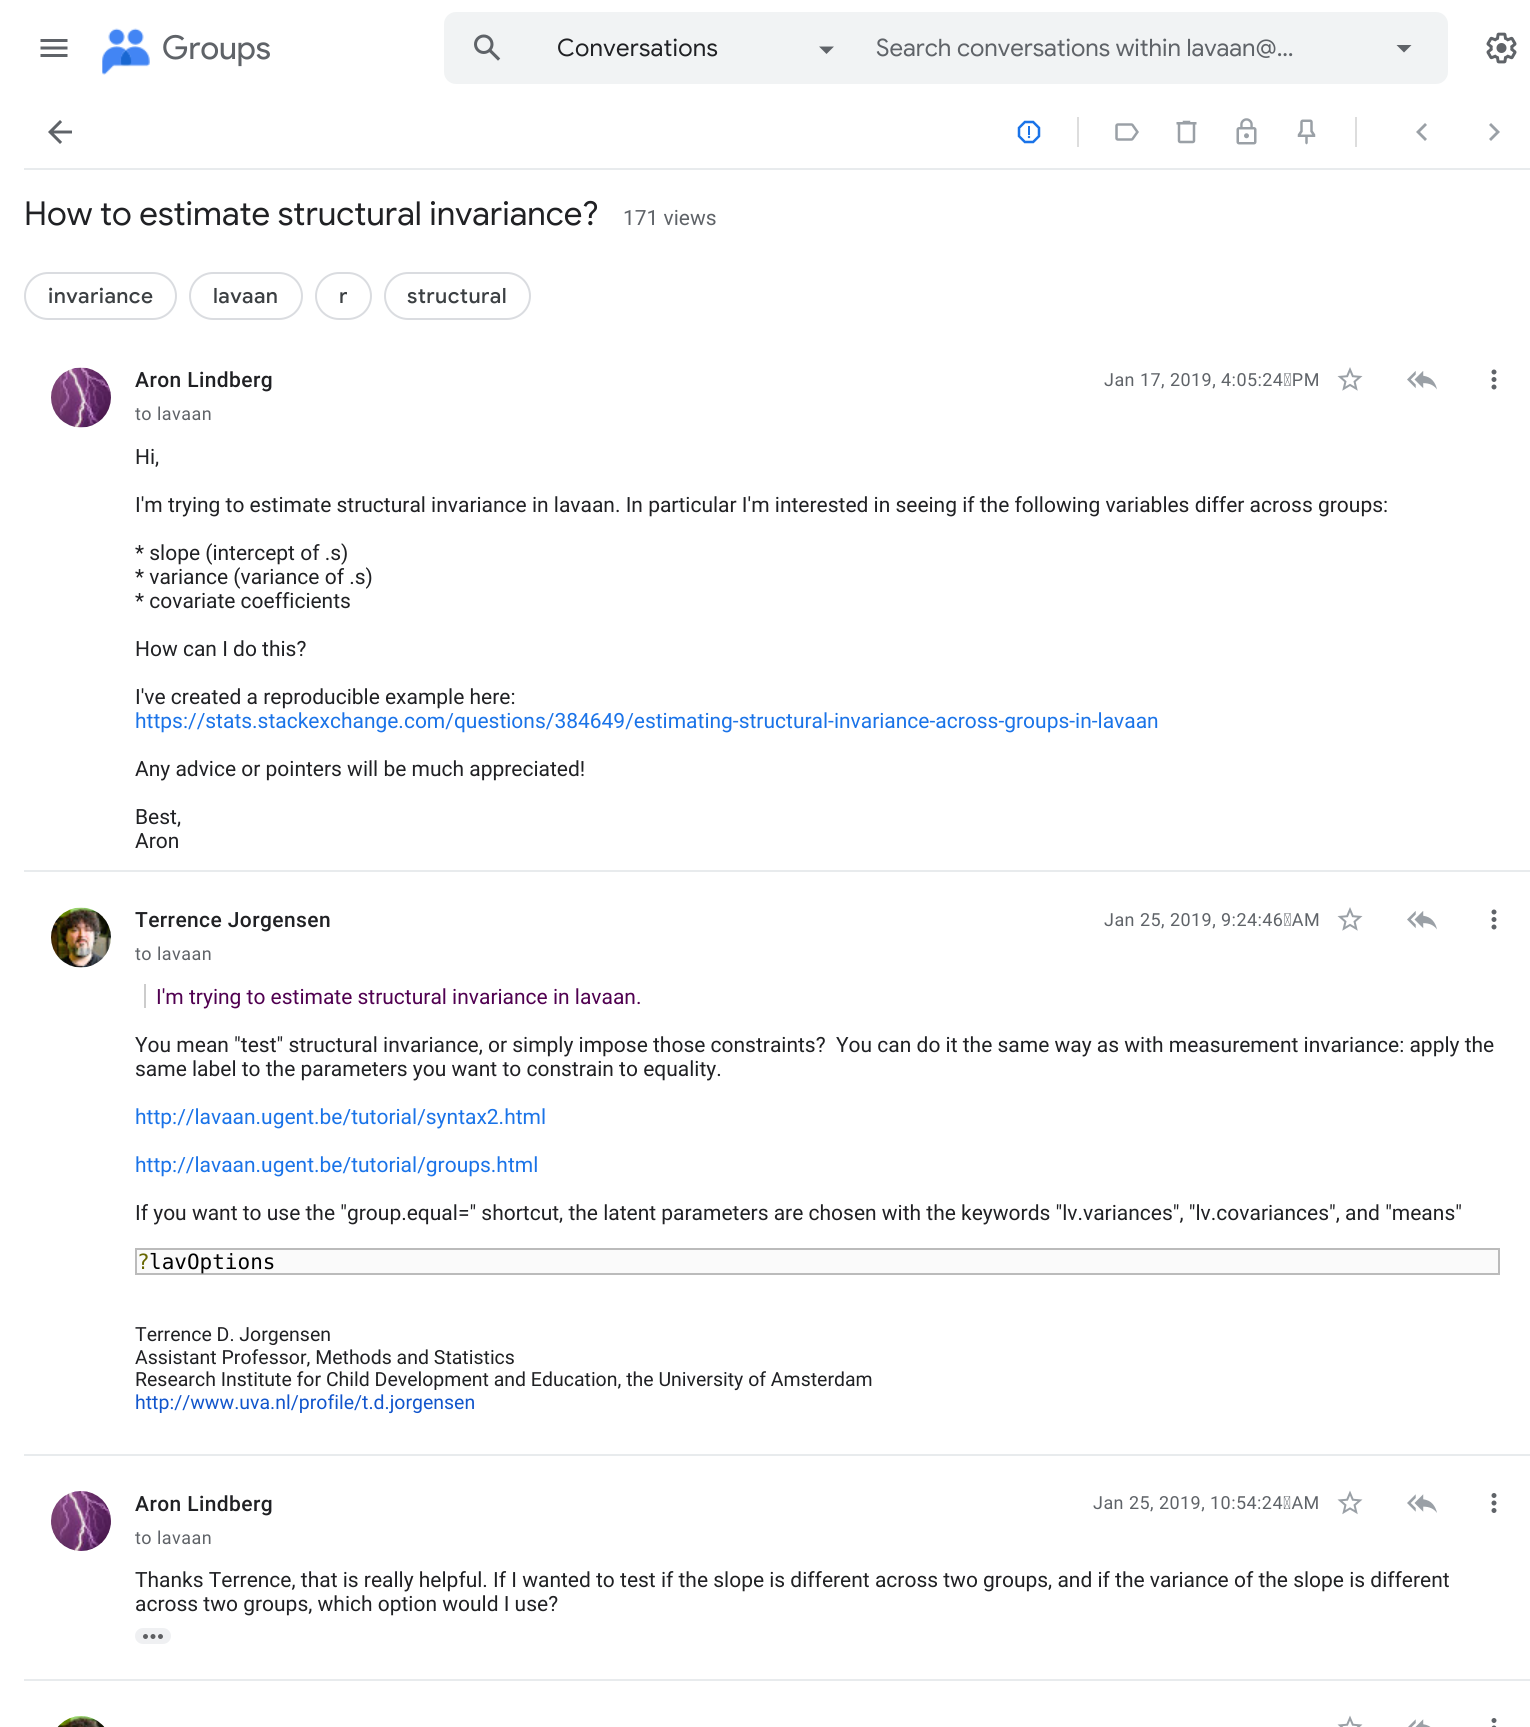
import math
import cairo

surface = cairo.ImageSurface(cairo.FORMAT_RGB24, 1530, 1727)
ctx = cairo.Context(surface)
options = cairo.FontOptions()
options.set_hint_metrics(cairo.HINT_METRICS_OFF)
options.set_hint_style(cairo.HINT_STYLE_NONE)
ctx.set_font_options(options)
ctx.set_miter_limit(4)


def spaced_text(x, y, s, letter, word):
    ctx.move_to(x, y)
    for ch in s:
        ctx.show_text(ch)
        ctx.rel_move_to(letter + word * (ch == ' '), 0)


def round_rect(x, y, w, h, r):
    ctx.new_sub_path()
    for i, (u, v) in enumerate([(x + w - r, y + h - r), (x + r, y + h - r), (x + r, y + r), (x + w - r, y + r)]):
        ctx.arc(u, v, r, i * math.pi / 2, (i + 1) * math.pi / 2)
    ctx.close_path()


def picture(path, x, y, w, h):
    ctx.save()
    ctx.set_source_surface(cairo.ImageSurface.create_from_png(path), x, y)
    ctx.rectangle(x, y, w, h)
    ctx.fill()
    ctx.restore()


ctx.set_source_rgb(1, 1, 1)
ctx.paint()
picture("img1.png", 40, 39, 28, 18)
picture("img2.png", 102, 28, 48, 47)
ctx.select_font_face("Product Sans")
ctx.set_font_size(33)
ctx.set_source_rgb(0.373, 0.388, 0.408)
ctx.move_to(162, 59)
ctx.show_text("Groups")
ctx.set_source_rgb(0.945, 0.953, 0.957)
round_rect(444, 12, 1004, 72, 12)
ctx.fill()
picture("img3.png", 474, 34, 27, 27)
ctx.select_font_face("Google Sans")
ctx.set_font_size(24)
ctx.set_source_rgb(0.125, 0.129, 0.141)
spaced_text(557, 56, "Conversations", 0.25, 0)
ctx.set_source_rgb(0.373, 0.388, 0.408)
ctx.new_path()
ctx.move_to(819, 46.5)
ctx.line_to(834, 46.5)
ctx.line_to(826.5, 54)
ctx.close_path()
ctx.fill()
ctx.move_to(876, 56)
ctx.show_text("Search conversations within lavaan@…")
ctx.new_path()
ctx.move_to(1396.5, 45)
ctx.line_to(1404, 52.5)
ctx.line_to(1411.5, 45)
ctx.close_path()
ctx.fill()
picture("img4.png", 1486, 32, 31, 32)
ctx.set_source_rgb(0.91, 0.918, 0.929)
ctx.rectangle(24, 168, 1506, 2)
ctx.fill()
picture("img5.png", 48, 120, 24, 24)
picture("img6.png", 1017, 120, 24, 24)
ctx.set_source_rgb(0.867, 0.867, 0.867)
ctx.rectangle(1077, 117, 2, 30)
ctx.fill()
picture("img7.png", 1115, 123, 24, 18)
picture("img8.png", 1176, 120, 21, 24)
picture("img9.png", 1236, 118, 21, 27)
picture("img10.png", 1297, 119, 19, 26)
ctx.rectangle(1355, 117, 2, 30)
ctx.fill()
ctx.set_source_rgb(0.604, 0.627, 0.651)
ctx.new_path()
ctx.move_to(1427, 125)
ctx.line_to(1420, 132)
ctx.line_to(1427, 139)
ctx.line_to(1425, 141)
ctx.line_to(1416, 132)
ctx.line_to(1425, 123)
ctx.close_path()
ctx.fill()
ctx.new_path()
ctx.move_to(1491, 123)
ctx.line_to(1500, 132)
ctx.line_to(1491, 141)
ctx.line_to(1489, 139)
ctx.line_to(1496, 132)
ctx.line_to(1489, 125)
ctx.close_path()
ctx.fill()
ctx.set_font_size(33)
ctx.set_source_rgb(0.125, 0.129, 0.141)
ctx.move_to(24, 225)
ctx.show_text("How to estimate structural invariance?")
ctx.select_font_face("Roboto")
ctx.set_font_size(21)
ctx.set_source_rgb(0.373, 0.388, 0.408)
ctx.move_to(623, 225)
ctx.show_text("171 views")
round_rect(25, 273, 151, 46, 23)
ctx.set_source_rgb(0.855, 0.863, 0.878)
ctx.stroke()
ctx.select_font_face("Google Sans Medium")
ctx.set_source_rgb(0.235, 0.251, 0.263)
spaced_text(48, 303, "invariance", 0.4, 0)
round_rect(190, 273, 112, 46, 23)
ctx.set_source_rgb(0.855, 0.863, 0.878)
ctx.stroke()
ctx.set_source_rgb(0.235, 0.251, 0.263)
spaced_text(213, 303, "lavaan", 0.4, 0)
round_rect(316, 273, 55, 46, 23)
ctx.set_source_rgb(0.855, 0.863, 0.878)
ctx.stroke()
ctx.set_source_rgb(0.235, 0.251, 0.263)
spaced_text(339, 303, "r", 0.4, 0)
round_rect(385, 273, 145, 46, 23)
ctx.set_source_rgb(0.855, 0.863, 0.878)
ctx.stroke()
ctx.set_source_rgb(0.235, 0.251, 0.263)
spaced_text(407, 303, "structural", 0.4, 0)
ctx.set_source_rgb(0.91, 0.918, 0.929)
ctx.rectangle(24, 870, 1506, 2)
ctx.fill()
picture("img11.png", 51, 367, 60, 61)
ctx.select_font_face("Roboto Medium")
ctx.set_source_rgb(0.125, 0.129, 0.141)
spaced_text(135, 387, "Aron Lindberg", 0.4, 0)
ctx.select_font_face("Roboto")
ctx.set_font_size(18)
ctx.set_source_rgb(0.373, 0.388, 0.408)
spaced_text(1104, 386, "Jan 17, 2019, 4:05:24 PM", 0.45, 0)
picture("img12.png", 1337, 367, 26, 24)
picture("img13.png", 1407, 371, 30, 19)
picture("img14.png", 1491, 369, 6, 21)
spaced_text(135, 420, "to lavaan", 0.45, 0)
ctx.set_font_size(21)
ctx.set_source_rgb(0.125, 0.129, 0.141)
ctx.move_to(135, 464)
ctx.show_text("Hi,")
ctx.move_to(135, 512)
ctx.show_text("I'm trying to estimate structural invariance in lavaan. In particular I'm interested in seeing if the following variables differ across groups:")
ctx.move_to(135, 560)
ctx.show_text("* slope (intercept of .s)")
ctx.move_to(135, 584)
ctx.show_text("* variance (variance of .s)")
ctx.move_to(135, 608)
ctx.show_text("* covariate coefficients")
ctx.move_to(135, 656)
ctx.show_text("How can I do this?")
ctx.move_to(135, 704)
ctx.show_text("I've created a reproducible example here:")
ctx.set_source_rgb(0.102, 0.451, 0.91)
ctx.move_to(135, 728)
ctx.show_text("https://stats.stackexchange.com/questions/384649/estimating-structural-invariance-across-groups-in-lavaan")
ctx.set_source_rgb(0.125, 0.129, 0.141)
ctx.move_to(135, 776)
ctx.show_text("Any advice or pointers will be much appreciated!")
ctx.move_to(135, 824)
ctx.show_text("Best,")
ctx.move_to(135, 848)
ctx.show_text("Aron")
ctx.set_source_rgb(0.91, 0.918, 0.929)
ctx.rectangle(24, 1454, 1506, 2)
ctx.fill()
picture("img15.png", 51, 907, 60, 61)
ctx.select_font_face("Roboto Medium")
ctx.set_source_rgb(0.125, 0.129, 0.141)
spaced_text(135, 927, "Terrence Jorgensen", 0.4, 0)
ctx.select_font_face("Roboto")
ctx.set_font_size(18)
ctx.set_source_rgb(0.373, 0.388, 0.408)
spaced_text(1104, 926, "Jan 25, 2019, 9:24:46 AM", 0.45, 0)
picture("img12.png", 1337, 907, 26, 24)
picture("img13.png", 1407, 911, 30, 19)
picture("img14.png", 1491, 909, 6, 21)
spaced_text(135, 960, "to lavaan", 0.45, 0)
ctx.set_source_rgb(0.8, 0.8, 0.8)
ctx.rectangle(144, 984, 2, 24)
ctx.fill()
ctx.set_font_size(21)
ctx.set_source_rgb(0.314, 0, 0.314)
ctx.move_to(156, 1004)
ctx.show_text("I'm trying to estimate structural invariance in lavaan.")
ctx.set_source_rgb(0.125, 0.129, 0.141)
ctx.move_to(135, 1052)
ctx.show_text("You mean \"test\" structural invariance, or simply impose those constraints?  You can do it the same way as with measurement invariance: apply the")
ctx.move_to(135, 1076)
ctx.show_text("same label to the parameters you want to constrain to equality.")
ctx.set_source_rgb(0.102, 0.451, 0.91)
ctx.move_to(135, 1124)
ctx.show_text("http://lavaan.ugent.be/tutorial/syntax2.html")
ctx.move_to(135, 1172)
ctx.show_text("http://lavaan.ugent.be/tutorial/groups.html")
ctx.set_source_rgb(0.125, 0.129, 0.141)
ctx.move_to(135, 1220)
ctx.show_text("If you want to use the \"group.equal=\" shortcut, the latent parameters are chosen with the keywords \"lv.variances\", \"lv.covariances\", and \"means\"")
ctx.set_source_rgb(0.98, 0.98, 0.98)
ctx.rectangle(136, 1249, 1363, 25)
ctx.fill_preserve()
ctx.set_source_rgb(0.733, 0.733, 0.733)
ctx.stroke()
ctx.select_font_face("DejaVu Sans Mono")
ctx.set_source_rgb(0.4, 0.4, 0)
ctx.move_to(137, 1269)
ctx.show_text("?")
ctx.set_source_rgb(0, 0, 0)
ctx.move_to(149, 1269)
ctx.show_text("lavOptions")
ctx.select_font_face("Roboto")
ctx.set_font_size(19.5)
ctx.set_source_rgb(0.125, 0.129, 0.141)
ctx.move_to(135, 1341)
ctx.show_text("Terrence D. Jorgensen")
ctx.move_to(135, 1364)
ctx.show_text("Assistant Professor, Methods and Statistics")
ctx.move_to(135, 1386)
ctx.show_text("Research Institute for Child Development and Education, the University of Amsterdam")
ctx.set_source_rgb(0.067, 0.333, 0.8)
ctx.move_to(135, 1409)
ctx.show_text("http://www.uva.nl/profile/t.d.jorgensen")
ctx.set_source_rgb(0.91, 0.918, 0.929)
ctx.rectangle(24, 1679, 1506, 2)
ctx.fill()
picture("img16.png", 51, 1491, 60, 60)
ctx.select_font_face("Roboto Medium")
ctx.set_font_size(21)
ctx.set_source_rgb(0.125, 0.129, 0.141)
spaced_text(135, 1511, "Aron Lindberg", 0.4, 0)
ctx.select_font_face("Roboto")
ctx.set_font_size(18)
ctx.set_source_rgb(0.373, 0.388, 0.408)
spaced_text(1093, 1509, "Jan 25, 2019, 10:54:24 AM", 0.45, 0)
picture("img17.png", 1337, 1490, 26, 25)
picture("img18.png", 1407, 1494, 30, 19)
picture("img19.png", 1491, 1493, 6, 20)
spaced_text(135, 1544, "to lavaan", 0.45, 0)
ctx.set_font_size(21)
ctx.set_source_rgb(0.125, 0.129, 0.141)
ctx.move_to(135, 1587)
ctx.show_text("Thanks Terrence, that is really helpful. If I wanted to test if the slope is different across two groups, and if the variance of the slope is different")
ctx.move_to(135, 1611)
ctx.show_text("across two groups, which option would I use?")
ctx.set_source_rgb(0.937, 0.941, 0.949)
round_rect(135, 1628, 36, 16, 8)
ctx.fill()
picture("img20.png", 143, 1634, 20, 5)
picture("img21.png", 57, 1716, 48, 11)
picture("img22.png", 1337, 1715, 26, 12)
picture("img23.png", 1408, 1719, 23, 8)
picture("img24.png", 1491, 1718, 6, 9)
surface.write_to_png("page.png")
